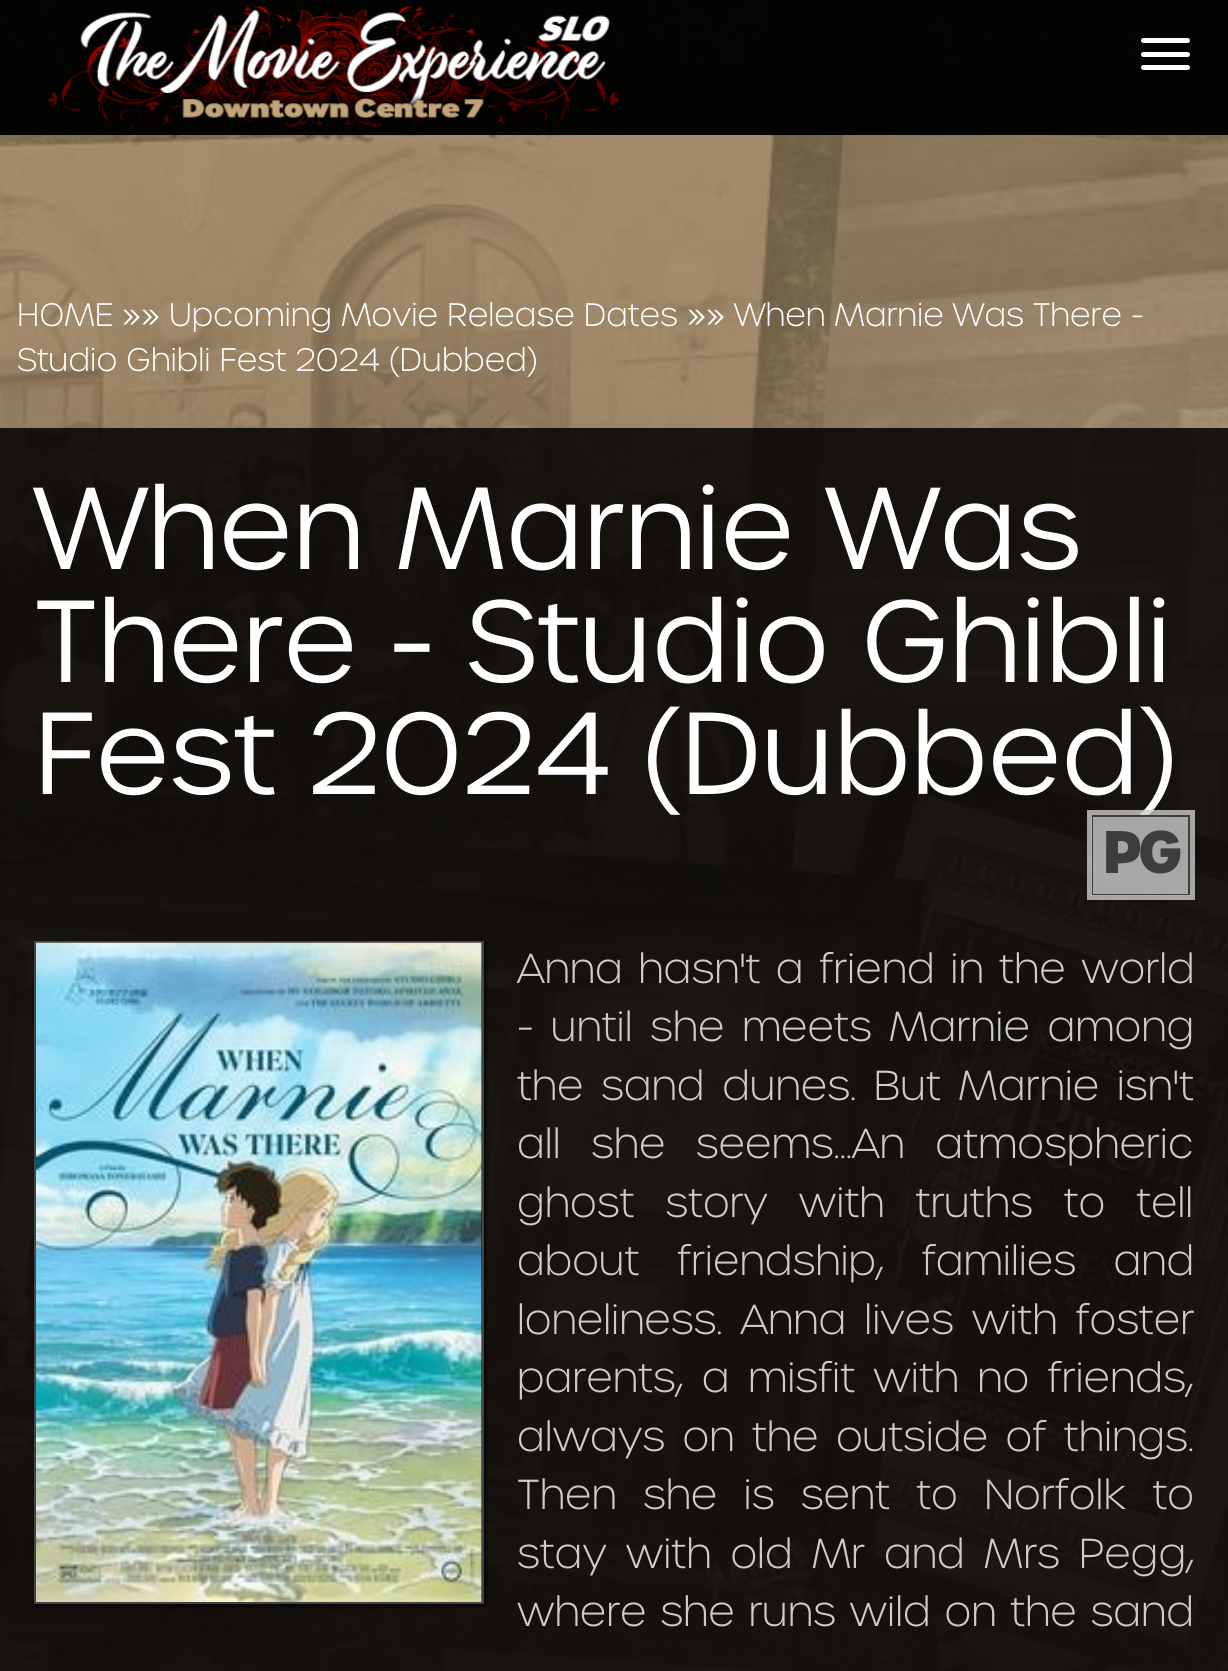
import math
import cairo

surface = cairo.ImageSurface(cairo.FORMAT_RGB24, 1228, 1671)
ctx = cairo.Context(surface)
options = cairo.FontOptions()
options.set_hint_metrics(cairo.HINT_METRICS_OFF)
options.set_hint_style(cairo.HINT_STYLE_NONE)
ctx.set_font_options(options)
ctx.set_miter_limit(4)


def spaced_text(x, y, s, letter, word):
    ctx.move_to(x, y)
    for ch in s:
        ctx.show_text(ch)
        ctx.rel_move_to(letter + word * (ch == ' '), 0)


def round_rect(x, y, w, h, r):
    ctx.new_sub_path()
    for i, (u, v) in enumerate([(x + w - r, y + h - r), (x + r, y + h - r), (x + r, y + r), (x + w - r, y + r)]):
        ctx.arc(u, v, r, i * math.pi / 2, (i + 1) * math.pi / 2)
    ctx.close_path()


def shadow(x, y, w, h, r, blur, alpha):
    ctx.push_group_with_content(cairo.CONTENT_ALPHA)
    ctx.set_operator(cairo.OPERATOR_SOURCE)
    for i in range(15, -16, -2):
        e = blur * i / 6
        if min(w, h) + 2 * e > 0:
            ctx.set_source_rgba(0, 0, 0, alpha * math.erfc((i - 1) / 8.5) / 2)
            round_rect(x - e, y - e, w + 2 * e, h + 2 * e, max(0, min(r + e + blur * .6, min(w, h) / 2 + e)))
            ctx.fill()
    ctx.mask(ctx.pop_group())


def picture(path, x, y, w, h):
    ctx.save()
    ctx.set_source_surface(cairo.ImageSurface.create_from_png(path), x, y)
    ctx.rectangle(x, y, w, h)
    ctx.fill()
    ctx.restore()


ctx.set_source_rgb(1, 1, 1)
ctx.paint()
picture("img1.png", 0, 0, 1228, 1671)
ctx.set_source_rgba(0, 0, 0, 0.97)
ctx.rectangle(0, 0, 1228, 135)
ctx.fill()
picture("img2.png", 47, 6, 573, 141)
ctx.set_source_rgb(1, 1, 1)
round_rect(1141, 38, 49, 5, 2.5)
ctx.fill()
round_rect(1141, 52, 49, 5, 2.5)
ctx.fill()
round_rect(1141, 65, 49, 5, 2.5)
ctx.fill()
ctx.select_font_face("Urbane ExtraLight")
ctx.set_font_size(31.5)
ctx.move_to(17, 326)
ctx.show_text("HOME")
ctx.select_font_face("Urbane Light")
ctx.move_to(122, 326)
ctx.show_text("»»")
ctx.select_font_face("Urbane ExtraLight")
ctx.move_to(169, 326)
ctx.show_text("Upcoming Movie Release Dates")
ctx.select_font_face("Urbane Light")
ctx.move_to(687, 326)
ctx.show_text("»»")
ctx.select_font_face("Urbane ExtraLight")
ctx.move_to(734, 326)
ctx.show_text("When Marnie Was There -")
ctx.move_to(17, 371)
ctx.show_text("Studio Ghibli Fest 2024 (Dubbed)")
ctx.set_source_rgba(0, 0, 0, 0.85)
ctx.rectangle(0, 428, 1228, 1243)
ctx.fill()
ctx.select_font_face("Urbane Light")
ctx.set_font_size(112.5)
ctx.set_source_rgb(1, 1, 1)
ctx.move_to(34, 569)
ctx.show_text("When Marnie Was")
ctx.move_to(34, 682)
ctx.show_text("There - Studio Ghibli")
ctx.move_to(34, 794)
ctx.show_text("Fest 2024 (Dubbed)")
ctx.set_source_rgba(0.8, 0.8, 0.8, 0.8)
ctx.rectangle(1092, 816, 97, 79)
ctx.fill_preserve()
ctx.set_source_rgb(0.239, 0.239, 0.235)
ctx.stroke()
ctx.rectangle(1089.5, 812.5, 103, 85)
ctx.set_source_rgba(0.8, 0.8, 0.8, 0.8)
ctx.set_line_width(5)
ctx.stroke()
ctx.select_font_face("Urbane", cairo.FONT_SLANT_NORMAL, cairo.FONT_WEIGHT_BOLD)
ctx.set_font_size(58)
ctx.set_source_rgb(0.239, 0.239, 0.235)
spaced_text(1102, 873, "PG", -4, 0)
ctx.set_source_rgb(0, 0, 0)
shadow(36, 943, 450, 664, 0, 2, 0.8)
ctx.rectangle(35, 942, 448, 661)
ctx.set_source_rgb(0.267, 0.267, 0.267)
ctx.set_line_width(2)
ctx.stroke()
picture("img3.png", 36, 942, 446, 660)
ctx.select_font_face("Urbane ExtraLight")
ctx.set_font_size(40.5)
ctx.set_source_rgb(0.8, 0.8, 0.8)
spaced_text(517, 983, "Anna hasn't a friend in the world", 0, 4)
spaced_text(517, 1041, "- until she meets Marnie among", 0, 6)
spaced_text(517, 1100, "the sand dunes. But Marnie isn't", 0, 6)
spaced_text(517, 1158, "all she seems...An atmospheric", 0, 19)
spaced_text(517, 1217, "ghost story with truths to tell", 0, 19.5)
spaced_text(517, 1275, "about friendship, families and", 0, 26)
spaced_text(517, 1334, "loneliness. Anna lives with foster", 0, 6.5)
spaced_text(517, 1392, "parents, a misfit with no friends,", 0, 6.75)
spaced_text(517, 1451, "always on the outside of things.", 0, 6)
spaced_text(517, 1509, "Then she is sent to Norfolk to", 0, 14.75)
spaced_text(517, 1568, "stay with old Mr and Mrs Pegg,", 0, 7.5)
spaced_text(517, 1626, "where she runs wild on the sand", 0, 2.25)
surface.write_to_png("page.png")
